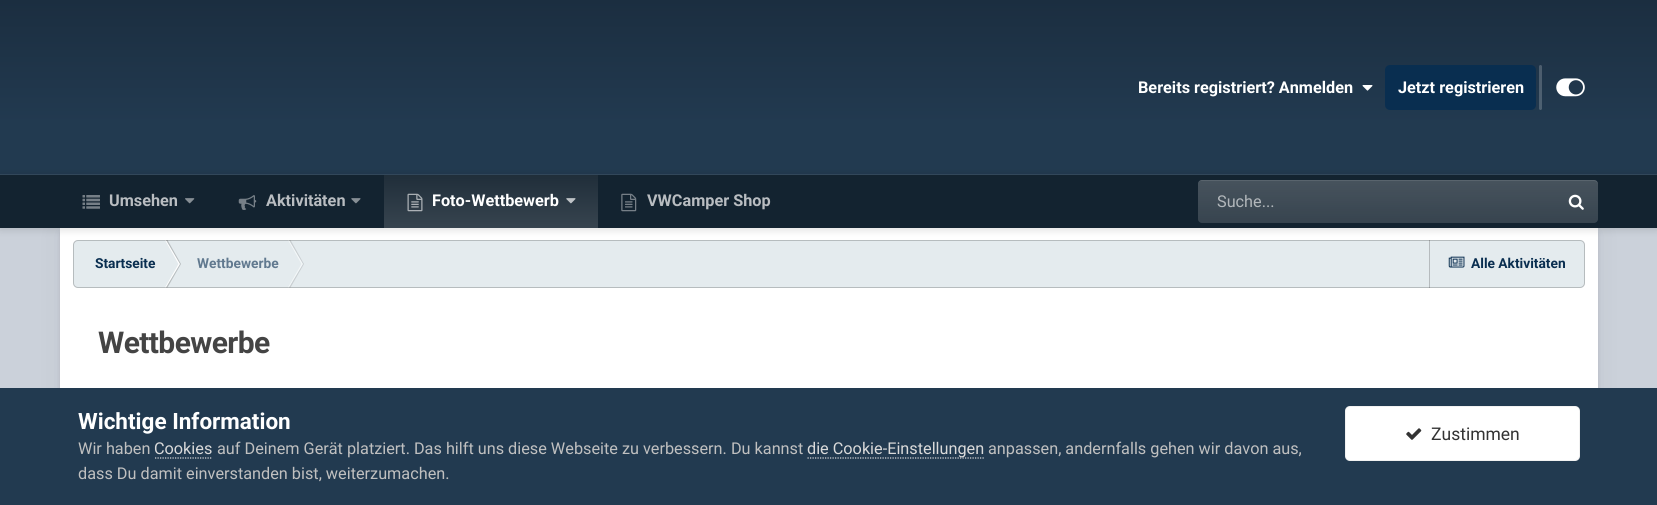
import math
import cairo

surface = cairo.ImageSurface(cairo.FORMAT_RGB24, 1657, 505)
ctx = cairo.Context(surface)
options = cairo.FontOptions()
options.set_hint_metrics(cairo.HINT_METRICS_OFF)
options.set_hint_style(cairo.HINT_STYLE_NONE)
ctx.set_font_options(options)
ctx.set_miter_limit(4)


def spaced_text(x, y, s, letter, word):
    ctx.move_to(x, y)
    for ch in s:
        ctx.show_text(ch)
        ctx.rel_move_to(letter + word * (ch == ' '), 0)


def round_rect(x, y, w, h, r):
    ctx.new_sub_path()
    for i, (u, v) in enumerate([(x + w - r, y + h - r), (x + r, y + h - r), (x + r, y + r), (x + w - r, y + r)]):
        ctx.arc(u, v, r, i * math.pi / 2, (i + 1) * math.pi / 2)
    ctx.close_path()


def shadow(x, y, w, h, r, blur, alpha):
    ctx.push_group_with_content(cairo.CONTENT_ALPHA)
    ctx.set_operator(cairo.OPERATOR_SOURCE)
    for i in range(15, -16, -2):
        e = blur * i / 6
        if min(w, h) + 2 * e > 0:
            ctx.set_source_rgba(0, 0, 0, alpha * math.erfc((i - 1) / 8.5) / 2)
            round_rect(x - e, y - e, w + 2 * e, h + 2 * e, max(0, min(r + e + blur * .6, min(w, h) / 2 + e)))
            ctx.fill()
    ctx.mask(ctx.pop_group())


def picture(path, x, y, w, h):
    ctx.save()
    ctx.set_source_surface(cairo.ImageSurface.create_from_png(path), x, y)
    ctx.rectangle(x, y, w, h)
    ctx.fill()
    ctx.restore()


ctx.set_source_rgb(0.796, 0.82, 0.855)
ctx.paint()
gradient = cairo.LinearGradient(829, 0, 829, 175)
gradient.add_color_stop_rgba(0, 0.106, 0.18, 0.251, 1)
gradient.add_color_stop_rgba(0.7, 0.133, 0.227, 0.314, 1)
ctx.set_source(gradient)
ctx.rectangle(0, 0, 1657, 174)
ctx.fill()
ctx.select_font_face("Roboto", cairo.FONT_SLANT_NORMAL, cairo.FONT_WEIGHT_BOLD)
ctx.set_font_size(16.25)
ctx.set_source_rgb(1, 1, 1)
ctx.move_to(1138, 93)
ctx.show_text("Bereits registriert? Anmelden")
picture("img1.png", 1362, 85, 11, 6)
ctx.set_source_rgb(0.039, 0.18, 0.314)
round_rect(1385, 65, 151, 45, 5)
ctx.fill()
ctx.set_source_rgb(1, 1, 1)
ctx.move_to(1398, 93)
ctx.show_text("Jetzt registrieren")
ctx.set_source_rgba(1, 1, 1, 0.2)
round_rect(1539, 65, 3, 45, 1.5)
ctx.fill()
picture("img2.png", 1556, 78, 29, 19)
ctx.set_source_rgb(0, 0, 0)
shadow(60, 229, 1538, 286, 4, 2, 0.08)
shadow(60, 228, 1538, 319, 4, 12.5, 0.06)
ctx.set_source_rgb(1, 1, 1)
ctx.rectangle(60, 228, 1538, 160)
ctx.fill()
ctx.set_source_rgb(0.894, 0.918, 0.933)
round_rect(73, 240, 1512, 48, 5)
ctx.fill()
ctx.set_source_rgb(1, 1, 1)
ctx.new_path()
ctx.move_to(165, 240)
ctx.line_to(166, 240)
ctx.line_to(180, 264)
ctx.line_to(178.5, 264)
ctx.close_path()
ctx.fill()
ctx.set_source_rgba(0, 0, 0, 0.2)
ctx.new_path()
ctx.move_to(166, 240)
ctx.line_to(167.5, 240)
ctx.line_to(181, 264)
ctx.line_to(180, 264)
ctx.close_path()
ctx.fill()
ctx.set_source_rgb(1, 1, 1)
ctx.new_path()
ctx.move_to(165, 287.5)
ctx.line_to(166, 287.5)
ctx.line_to(180, 264)
ctx.line_to(178.5, 264)
ctx.close_path()
ctx.fill()
ctx.set_source_rgba(0, 0, 0, 0.2)
ctx.new_path()
ctx.move_to(166, 287.5)
ctx.line_to(167.5, 287.5)
ctx.line_to(181, 264)
ctx.line_to(180, 264)
ctx.close_path()
ctx.fill()
ctx.set_source_rgb(0.957, 0.969, 0.973)
ctx.new_path()
ctx.move_to(288, 240)
ctx.line_to(289, 240)
ctx.line_to(303, 264)
ctx.line_to(301.5, 264)
ctx.close_path()
ctx.fill()
ctx.set_source_rgba(0.357, 0.369, 0.373, 0.2)
ctx.new_path()
ctx.move_to(289, 240)
ctx.line_to(290.5, 240)
ctx.line_to(304, 264)
ctx.line_to(303, 264)
ctx.close_path()
ctx.fill()
ctx.set_source_rgb(0.957, 0.969, 0.973)
ctx.new_path()
ctx.move_to(288, 287.5)
ctx.line_to(289, 287.5)
ctx.line_to(303, 264)
ctx.line_to(301.5, 264)
ctx.close_path()
ctx.fill()
ctx.set_source_rgba(0.357, 0.369, 0.373, 0.2)
ctx.new_path()
ctx.move_to(289, 287.5)
ctx.line_to(290.5, 287.5)
ctx.line_to(304, 264)
ctx.line_to(303, 264)
ctx.close_path()
ctx.fill()
ctx.set_source_rgb(0.714, 0.733, 0.745)
ctx.rectangle(1429, 240, 1, 48)
ctx.fill()
picture("img11.png", 1448, 256, 17, 12)
round_rect(73.5, 240.5, 1511, 47, 4.5)
ctx.set_source_rgba(0, 0, 0, 0.2)
ctx.set_line_width(1)
ctx.stroke()
ctx.set_source_rgb(0, 0, 0)
shadow(0, 176, 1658, 53, 0, 4.5, 0.15)
ctx.set_source_rgb(0.196, 0.278, 0.353)
ctx.new_path()
ctx.move_to(0, 174)
ctx.line_to(0, 175)
ctx.line_to(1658, 175)
ctx.line_to(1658, 226)
ctx.line_to(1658, 174)
ctx.close_path()
ctx.fill()
ctx.set_source_rgb(0.078, 0.137, 0.188)
ctx.rectangle(0, 175, 1657, 53)
ctx.fill()
picture("img3.png", 82, 195, 18, 14)
ctx.set_source_rgb(0.725, 0.741, 0.757)
ctx.move_to(109, 206)
ctx.show_text("Umsehen")
picture("img4.png", 185, 198, 10, 6)
picture("img5.png", 238, 195, 19, 15)
ctx.move_to(266, 206)
ctx.show_text("Aktivitäten")
picture("img6.png", 351, 198, 10, 6)
gradient = cairo.LinearGradient(491, 175, 491, 228)
gradient.add_color_stop_rgba(0, 0.125, 0.18, 0.227, 1)
gradient.add_color_stop_rgba(1, 0.216, 0.267, 0.31, 1)
ctx.set_source(gradient)
ctx.rectangle(384, 175, 214, 53)
ctx.fill()
picture("img7.png", 407, 193, 16, 19)
ctx.set_source_rgb(1, 1, 1)
ctx.move_to(432, 206)
ctx.show_text("Foto-Wettbewerb")
picture("img8.png", 566, 198, 10, 6)
picture("img9.png", 621, 193, 16, 19)
ctx.set_source_rgb(0.725, 0.741, 0.757)
ctx.move_to(647, 206)
ctx.show_text("VWCamper Shop")
ctx.set_source_rgb(0.216, 0.267, 0.31)
round_rect(1198, 180, 400, 43, 4)
ctx.fill()
gradient = cairo.LinearGradient(1398, 180, 1398, 223)
gradient.add_color_stop_rgba(0, 1, 1, 1, 0.08)
gradient.add_color_stop_rgba(1, 1, 1, 1, 0)
ctx.set_source(gradient)
round_rect(1198, 180, 400, 43, 4)
ctx.fill()
ctx.set_source_rgba(1, 1, 1, 0.1)
ctx.new_path()
ctx.move_to(1201, 181)
ctx.line_to(1594, 181)
ctx.curve_to(1596, 181, 1598, 183, 1598, 185)
ctx.curve_to(1598, 182, 1597, 180, 1594, 180)
ctx.line_to(1202, 180)
ctx.curve_to(1199, 180, 1198, 182, 1198, 185)
ctx.curve_to(1198, 183, 1199, 181, 1201, 181)
ctx.close_path()
ctx.fill()
ctx.select_font_face("Roboto")
ctx.set_source_rgb(0.698, 0.718, 0.733)
ctx.move_to(1217, 207)
ctx.show_text("Suche...")
picture("img10.png", 1568, 194, 16, 16)
ctx.select_font_face("Roboto", cairo.FONT_SLANT_NORMAL, cairo.FONT_WEIGHT_BOLD)
ctx.set_font_size(13.75)
ctx.set_source_rgb(0.039, 0.18, 0.314)
ctx.move_to(95, 268)
ctx.show_text("Startseite")
ctx.set_source_rgb(0.38, 0.475, 0.561)
ctx.move_to(197, 268)
ctx.show_text("Wettbewerbe")
ctx.set_source_rgb(0.039, 0.18, 0.314)
ctx.move_to(1471, 268)
ctx.show_text("Alle Aktivitäten")
ctx.set_font_size(30)
ctx.set_source_rgb(0.267, 0.267, 0.267)
spaced_text(98, 353, "Wettbewerbe", -0.6, 0)
ctx.set_source_rgb(0.133, 0.227, 0.314)
ctx.rectangle(0, 388, 1657, 117)
ctx.fill()
ctx.set_font_size(22.5)
ctx.set_source_rgb(1, 1, 1)
ctx.move_to(78, 429)
ctx.show_text("Wichtige Information")
ctx.select_font_face("Roboto")
ctx.set_font_size(16.25)
ctx.set_source_rgb(0.753, 0.753, 0.753)
ctx.move_to(78, 454)
ctx.show_text("Wir haben")
ctx.set_source_rgb(0.855, 0.855, 0.855)
ctx.move_to(154, 454)
ctx.show_text("Cookies")
ctx.new_path()
ctx.move_to(155, 458)
ctx.line_to(212.5, 458)
ctx.set_line_width(1.2)
ctx.set_dash([1.25, 1.25])
ctx.stroke()
ctx.set_source_rgb(0.753, 0.753, 0.753)
ctx.move_to(217, 454)
ctx.show_text("auf Deinem Gerät platziert. Das hilft uns diese Webseite zu verbessern. Du kannst")
ctx.new_path()
ctx.move_to(807.5, 458)
ctx.line_to(984, 458)
ctx.set_source_rgb(0.855, 0.855, 0.855)
ctx.stroke()
ctx.move_to(807, 454)
ctx.show_text("die Cookie-Einstellungen")
ctx.set_source_rgb(0.753, 0.753, 0.753)
ctx.move_to(988, 454)
ctx.show_text("anpassen, andernfalls gehen wir davon aus,")
ctx.move_to(78, 479)
ctx.show_text("dass Du damit einverstanden bist, weiterzumachen.")
ctx.set_source_rgb(1, 1, 1)
round_rect(1345, 406, 235, 55, 5)
ctx.fill()
round_rect(1345.5, 406.5, 234, 54, 4.5)
ctx.set_source_rgba(0.2, 0.2, 0.2, 0.07)
ctx.set_line_width(1)
ctx.set_dash([])
ctx.stroke()
picture("img12.png", 1406, 428, 16, 12)
ctx.set_font_size(17.5)
ctx.set_source_rgb(0.2, 0.2, 0.2)
ctx.move_to(1431, 440)
ctx.show_text("Zustimmen")
surface.write_to_png("page.png")
